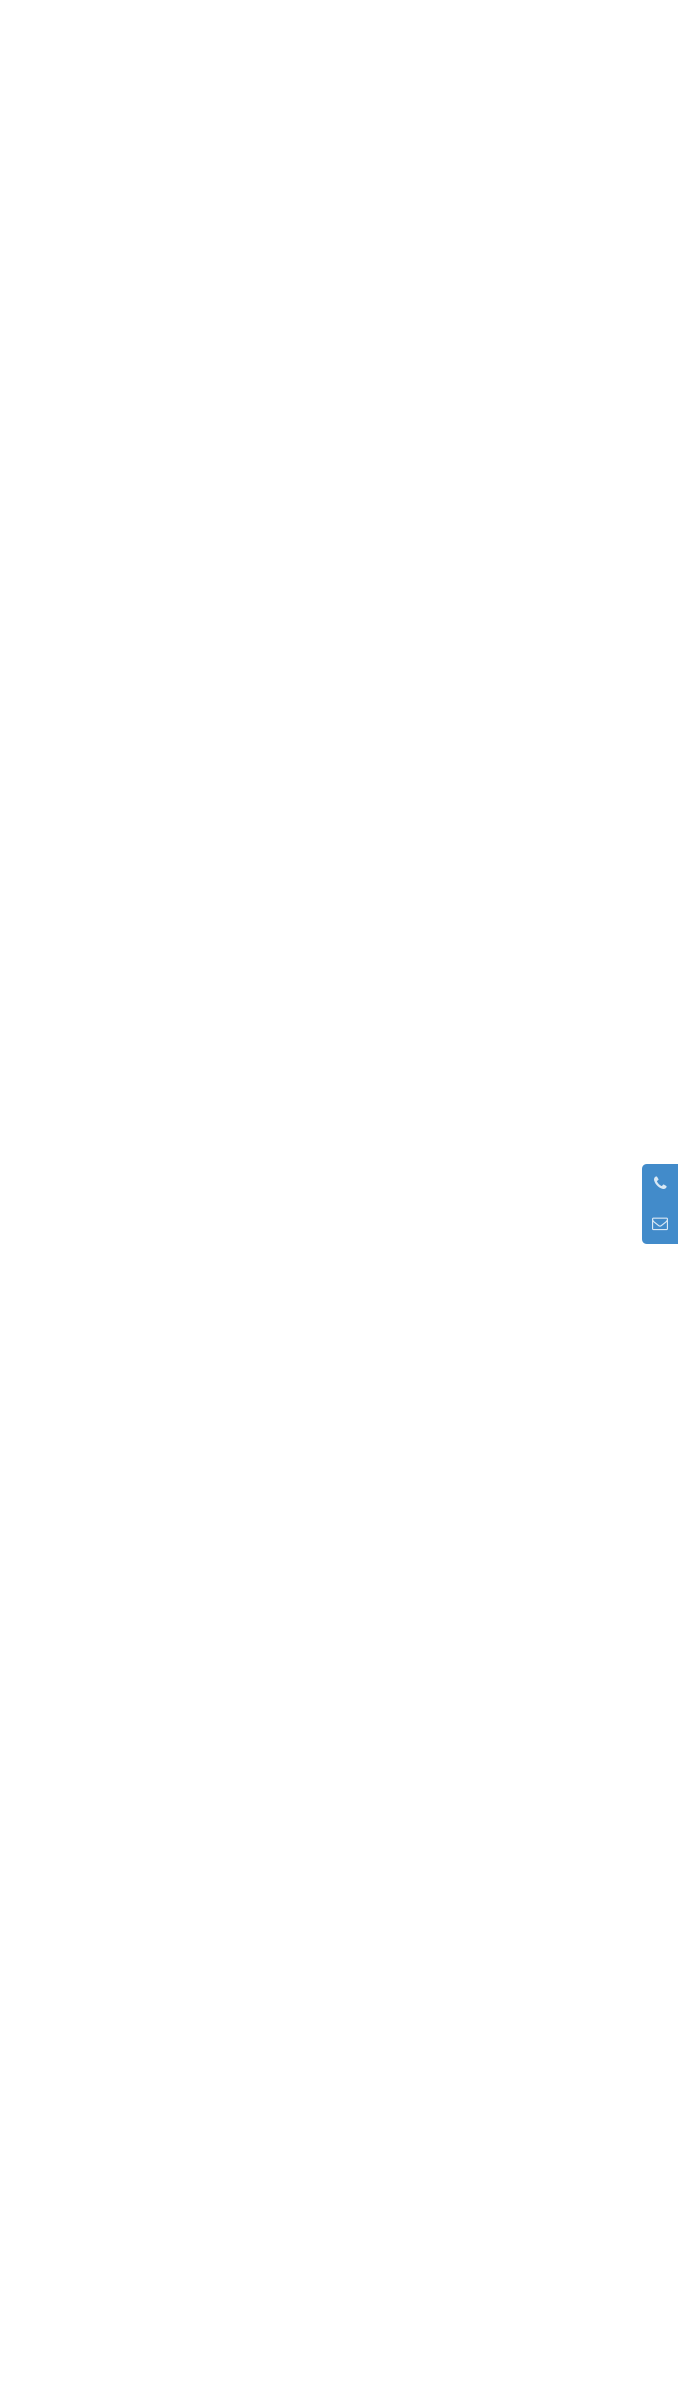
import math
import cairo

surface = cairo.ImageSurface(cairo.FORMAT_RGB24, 678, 2407)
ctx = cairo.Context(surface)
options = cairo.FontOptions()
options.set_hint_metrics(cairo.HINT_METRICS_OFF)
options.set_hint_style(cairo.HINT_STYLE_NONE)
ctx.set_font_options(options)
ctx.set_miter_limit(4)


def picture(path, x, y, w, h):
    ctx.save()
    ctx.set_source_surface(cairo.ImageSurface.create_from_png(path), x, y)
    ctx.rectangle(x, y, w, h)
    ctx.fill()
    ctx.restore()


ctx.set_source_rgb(1, 1, 1)
ctx.paint()
ctx.set_source_rgb(0.259, 0.545, 0.792)
ctx.new_path()
ctx.move_to(647, 1164)
ctx.line_to(678, 1164)
ctx.line_to(678, 1244)
ctx.line_to(647, 1244)
ctx.curve_to(644, 1244, 642, 1242, 642, 1239)
ctx.line_to(642, 1169)
ctx.curve_to(642, 1166, 644, 1164, 647, 1164)
ctx.close_path()
ctx.fill()
picture("img1.png", 654, 1176, 13, 13)
picture("img2.png", 652, 1217, 16, 14)
surface.write_to_png("page.png")
